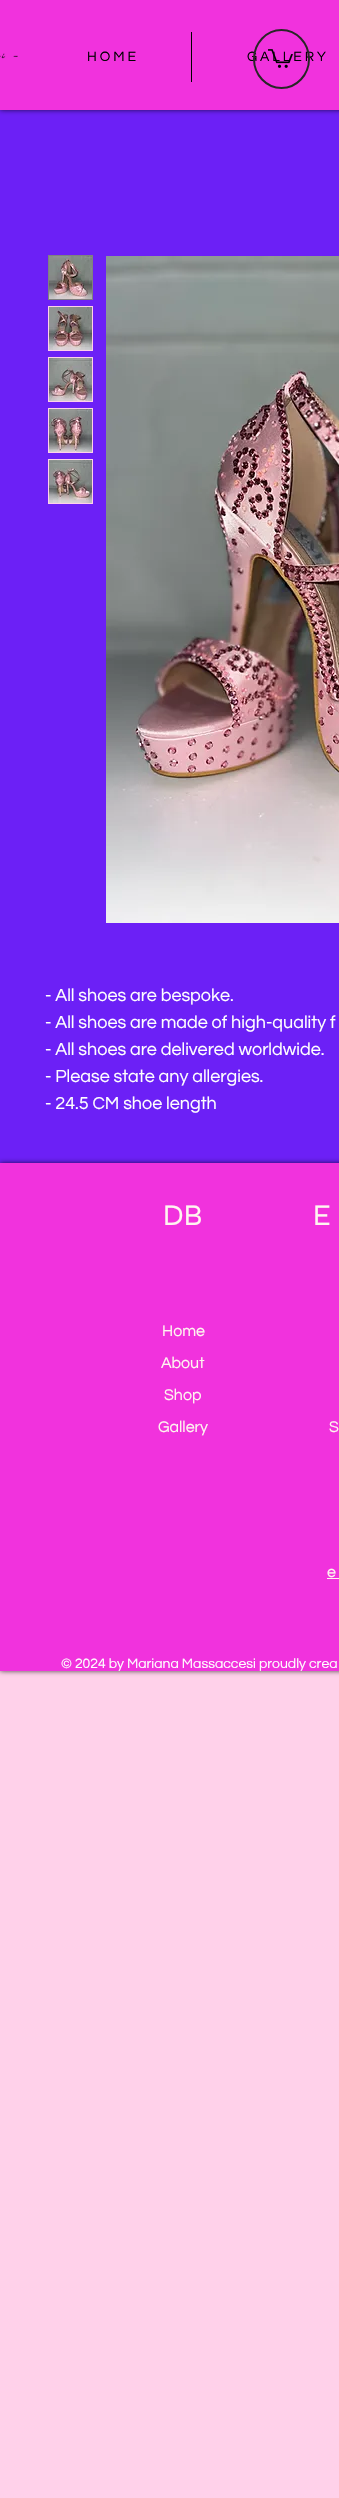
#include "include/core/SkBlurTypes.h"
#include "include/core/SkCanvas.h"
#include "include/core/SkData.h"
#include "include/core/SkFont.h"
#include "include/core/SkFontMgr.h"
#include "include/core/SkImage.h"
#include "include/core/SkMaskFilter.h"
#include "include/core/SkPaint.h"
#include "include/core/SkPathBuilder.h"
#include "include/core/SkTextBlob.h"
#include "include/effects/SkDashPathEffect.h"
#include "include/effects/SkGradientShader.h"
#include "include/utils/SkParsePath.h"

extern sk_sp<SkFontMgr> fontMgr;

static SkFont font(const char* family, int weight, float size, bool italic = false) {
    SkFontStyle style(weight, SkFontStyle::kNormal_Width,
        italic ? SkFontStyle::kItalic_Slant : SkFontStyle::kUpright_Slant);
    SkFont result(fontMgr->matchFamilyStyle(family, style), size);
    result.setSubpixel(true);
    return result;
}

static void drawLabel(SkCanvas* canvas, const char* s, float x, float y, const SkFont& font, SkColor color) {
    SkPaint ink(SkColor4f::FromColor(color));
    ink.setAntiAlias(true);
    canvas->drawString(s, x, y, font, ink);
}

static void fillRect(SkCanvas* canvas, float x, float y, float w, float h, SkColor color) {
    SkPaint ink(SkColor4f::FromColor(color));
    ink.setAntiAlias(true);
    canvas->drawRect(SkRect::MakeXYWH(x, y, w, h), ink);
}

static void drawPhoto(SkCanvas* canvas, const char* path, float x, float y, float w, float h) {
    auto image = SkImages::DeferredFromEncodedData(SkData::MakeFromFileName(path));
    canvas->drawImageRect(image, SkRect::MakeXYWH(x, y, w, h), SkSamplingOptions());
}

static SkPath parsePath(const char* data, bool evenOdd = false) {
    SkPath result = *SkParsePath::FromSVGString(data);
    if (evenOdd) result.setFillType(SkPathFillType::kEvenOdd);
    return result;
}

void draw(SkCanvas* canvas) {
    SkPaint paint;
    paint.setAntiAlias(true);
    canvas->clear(0xFFFFD1EA);
    fillRect(canvas, 0, 110, 339, 1053, 0xFF6C20F6);
    paint.setColor(0xB3000000);
    paint.setMaskFilter(SkMaskFilter::MakeBlur(kNormal_SkBlurStyle, 2.5f));
    canvas->drawRect(SkRect::MakeXYWH(0, 0, 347, 110), paint);
    paint.setMaskFilter(nullptr);
    fillRect(canvas, 0, 0, 339, 110, 0xFFF132DD);
    SkFont font1 = font("Questrial", 400, 14);
    drawLabel(canvas, "G A L L E R Y", 247, 61, font1, 0xFF000000);
    paint.setStroke(true);
    paint.setStrokeWidth(2);
    paint.setColor(0xFF282626);
    canvas->drawPath(parsePath("M281.5 30C296.5 30 309 43 309 59C309 75 296.5 88 281.5 88C266.5 88 254 75 254 59C254 43 266.5 30 281.5 30Z"), paint);
    drawPhoto(canvas, "assets/img1.png", 268, 49, 25, 19);
    drawPhoto(canvas, "assets/img2.png", 0, 53, 18, 6);
    drawLabel(canvas, "H O M E", 87, 61, font1, 0xFF000000);
    fillRect(canvas, 191, 32, 1, 50, 0xFF000000);
    paint.setStrokeWidth(1);
    paint.setColor(0xFF808080);
    canvas->drawRect(SkRect::MakeXYWH(48.5f, 255.5f, 44, 44), paint);
    drawPhoto(canvas, "assets/img3.png", 49, 256, 43, 43);
    fillRect(canvas, 48, 306, 45, 45, 0xFFFFD1EA);
    drawPhoto(canvas, "assets/img4.png", 49, 307, 43, 43);
    fillRect(canvas, 48, 357, 45, 45, 0xFFFFD1EA);
    drawPhoto(canvas, "assets/img5.png", 49, 358, 43, 43);
    fillRect(canvas, 48, 408, 45, 45, 0xFFFFD1EA);
    drawPhoto(canvas, "assets/img6.png", 49, 409, 43, 43);
    fillRect(canvas, 48, 459, 45, 45, 0xFFFFD1EA);
    drawPhoto(canvas, "assets/img7.png", 49, 460, 43, 43);
    drawPhoto(canvas, "assets/img8.png", 106, 256, 233, 667);
    SkFont font2 = font("Questrial", 400, 18);
    drawLabel(canvas, "- All shoes are bespoke.", 45, 1001, font2, 0xFFFFFFFF);
    drawLabel(canvas, "- All shoes are made of high-quality f", 45, 1028, font2, 0xFFFFFFFF);
    drawLabel(canvas, "- All shoes are delivered worldwide.", 45, 1055, font2, 0xFFFFFFFF);
    drawLabel(canvas, "- Please state any allergies.", 45, 1082, font2, 0xFFFFFFFF);
    drawLabel(canvas, "- 24.5 CM shoe length", 45, 1109, font2, 0xFFFFFFFF);
    paint.setStroke(false);
    paint.setColor(0xB3000000);
    paint.setMaskFilter(SkMaskFilter::MakeBlur(kNormal_SkBlurStyle, 2.5f));
    canvas->drawRect(SkRect::MakeXYWH(0, 1163, 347, 508), paint);
    paint.setMaskFilter(nullptr);
    fillRect(canvas, 0, 1163, 339, 508, 0xFFF132DD);
    SkFont font3 = font("Syne", 400, 30);
    drawLabel(canvas, "DB", 163, 1225, font3, 0xFFFFF5F0);
    drawLabel(canvas, "E", 313, 1225, font3, 0xFFFFF5F0);
    SkFont font4 = font("Questrial", 400, 16);
    drawLabel(canvas, "Home", 162, 1336, font4, 0xFFFFF5F0);
    drawLabel(canvas, "About", 161, 1368, font4, 0xFFFFF5F0);
    drawLabel(canvas, "Shop", 164, 1400, font4, 0xFFFFF5F0);
    drawLabel(canvas, "Gallery", 158, 1432, font4, 0xFFFFF5F0);
    drawLabel(canvas, "S", 329, 1432, font4, 0xFFFFF5F0);
    drawLabel(canvas, "e", 327, 1577, font4, 0xFFFFF5F0);
    fillRect(canvas, 327, 1578, 12, 1, 0xFFFFF5F0);
    drawLabel(canvas, "© 2024 by Mariana Massaccesi proudly crea", 61, 1668, font1, 0xFFFFFFFF);
}
